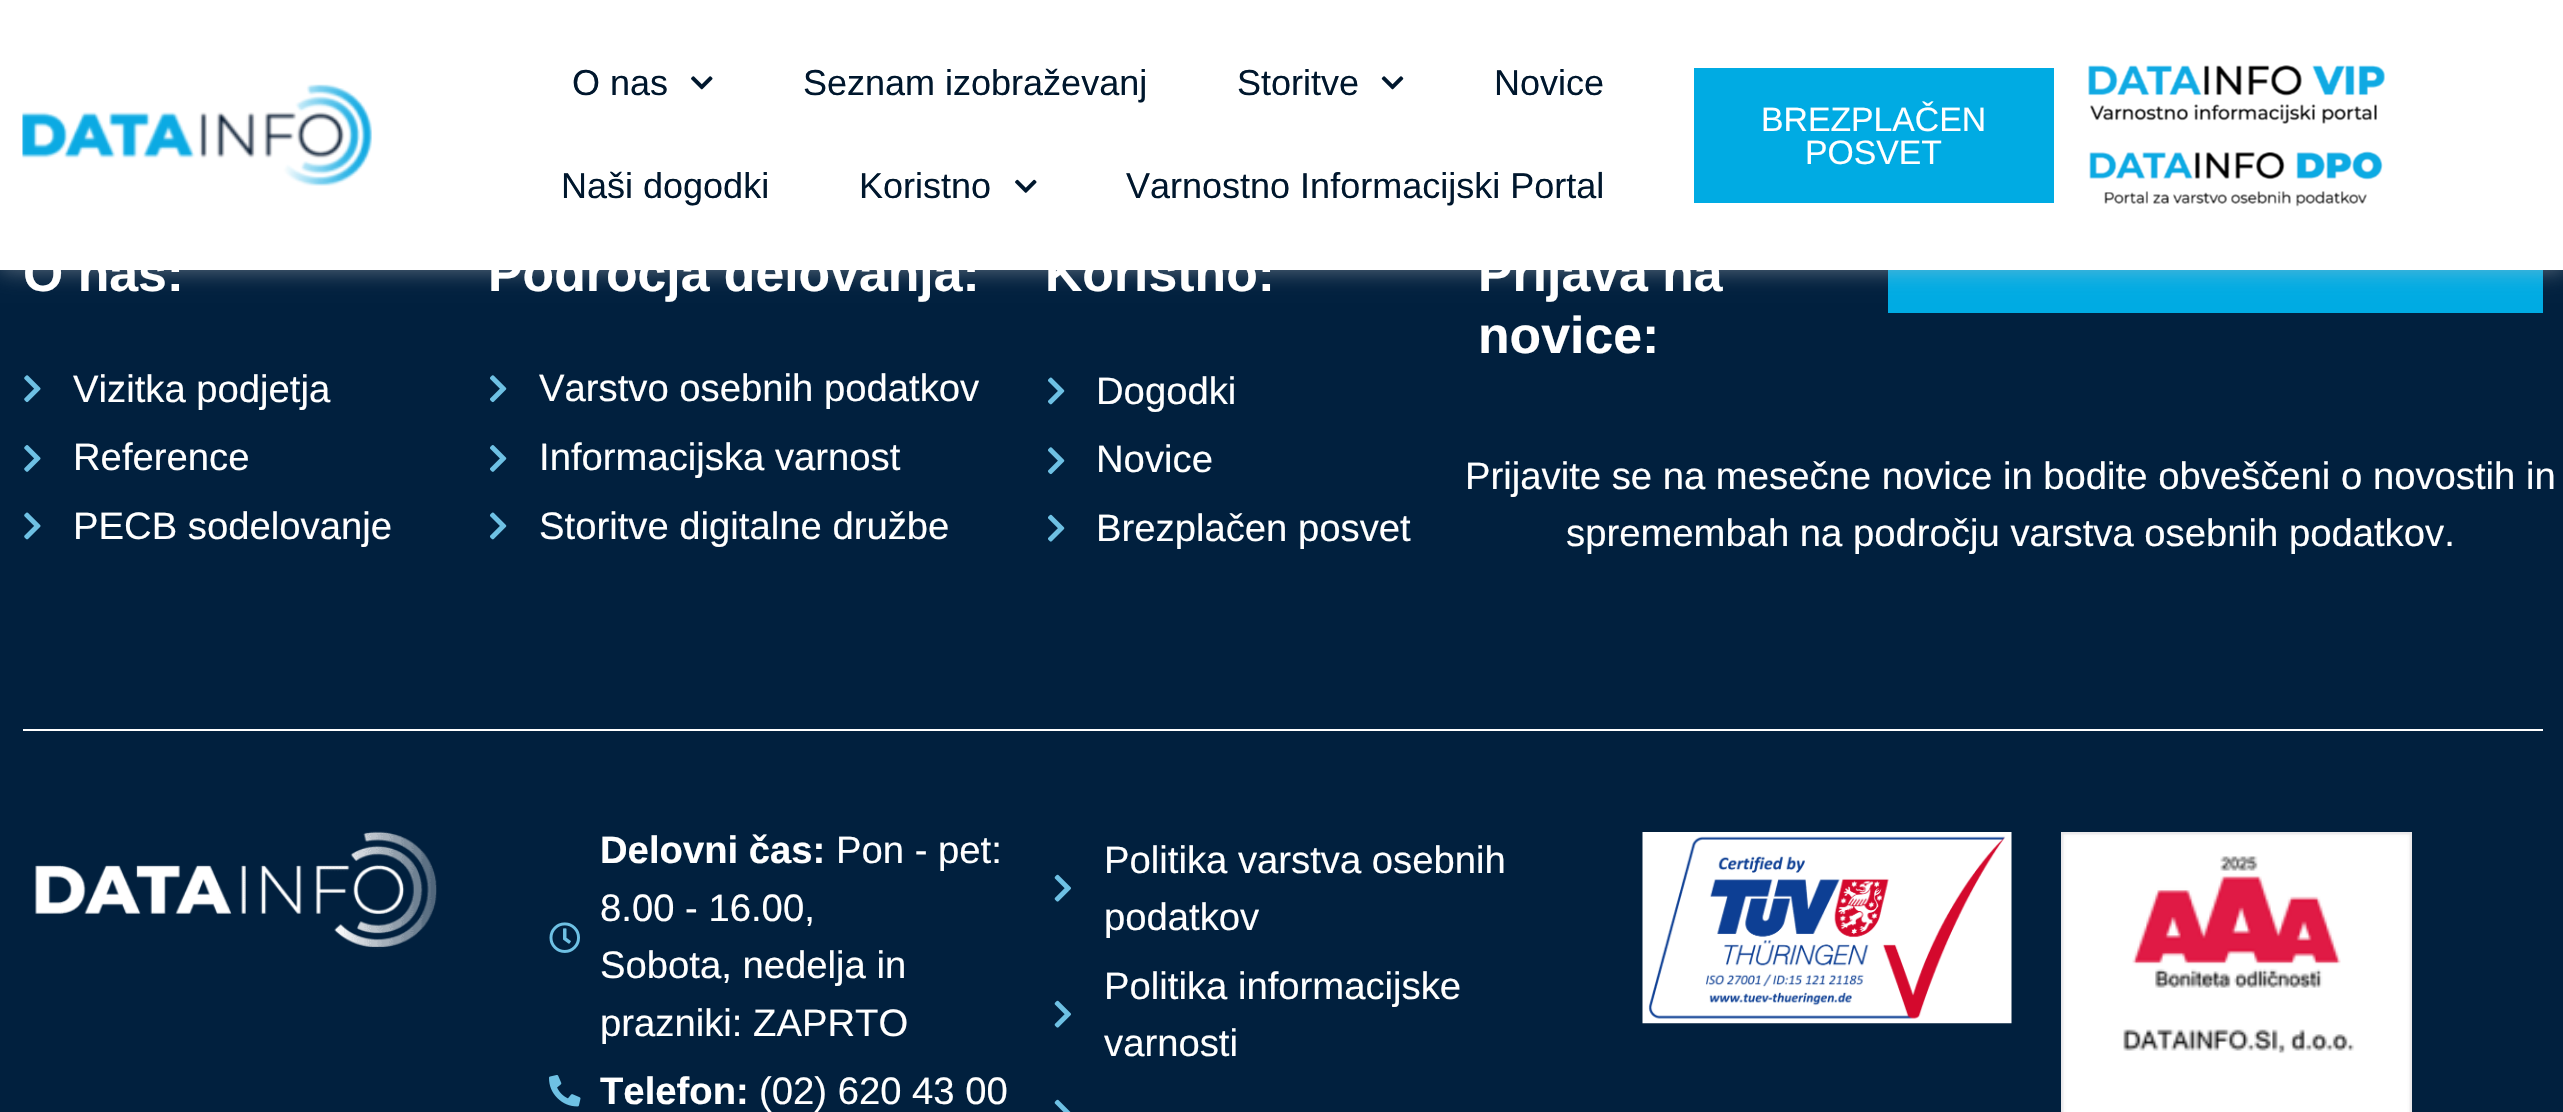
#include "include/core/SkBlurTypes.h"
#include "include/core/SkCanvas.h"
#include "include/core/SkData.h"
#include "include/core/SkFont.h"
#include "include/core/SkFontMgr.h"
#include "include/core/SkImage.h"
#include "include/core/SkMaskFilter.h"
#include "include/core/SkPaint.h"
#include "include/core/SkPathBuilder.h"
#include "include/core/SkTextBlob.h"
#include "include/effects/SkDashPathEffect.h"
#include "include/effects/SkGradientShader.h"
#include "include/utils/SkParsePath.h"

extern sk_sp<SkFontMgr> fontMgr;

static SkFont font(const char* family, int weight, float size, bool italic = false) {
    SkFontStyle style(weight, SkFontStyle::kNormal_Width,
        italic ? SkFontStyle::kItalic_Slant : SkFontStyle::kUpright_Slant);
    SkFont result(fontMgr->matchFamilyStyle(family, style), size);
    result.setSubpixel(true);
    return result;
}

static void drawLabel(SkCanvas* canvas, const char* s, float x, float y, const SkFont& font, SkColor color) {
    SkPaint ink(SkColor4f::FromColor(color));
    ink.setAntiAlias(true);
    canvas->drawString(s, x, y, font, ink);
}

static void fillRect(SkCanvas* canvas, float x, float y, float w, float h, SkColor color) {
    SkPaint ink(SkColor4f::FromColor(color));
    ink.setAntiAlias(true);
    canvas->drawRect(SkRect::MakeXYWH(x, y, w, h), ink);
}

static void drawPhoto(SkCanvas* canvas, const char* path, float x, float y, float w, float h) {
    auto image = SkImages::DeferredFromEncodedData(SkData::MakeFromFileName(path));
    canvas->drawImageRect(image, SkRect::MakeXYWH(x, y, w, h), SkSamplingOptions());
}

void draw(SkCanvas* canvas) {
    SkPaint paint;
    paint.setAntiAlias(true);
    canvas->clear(0xFF01203E);
    fillRect(canvas, 1888, 270, 655, 43, 0xFF00ABE3);
    paint.setColor(0x80C4C4C4);
    paint.setMaskFilter(SkMaskFilter::MakeBlur(kNormal_SkBlurStyle, 11));
    canvas->drawRect(SkRect::MakeXYWH(0, 0, 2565, 270), paint);
    paint.setMaskFilter(nullptr);
    fillRect(canvas, 0, 0, 2563, 270, 0xFFFFFFFF);
    drawPhoto(canvas, "assets/img1.png", 22, 84, 350, 102);
    SkFont font1 = font("Liberation Sans", 400, 36);
    drawLabel(canvas, "O nas", 572, 95, font1, 0xFF00172D);
    drawPhoto(canvas, "assets/img2.png", 691, 76, 22, 14);
    drawLabel(canvas, "Seznam izobraževanj", 803, 95, font1, 0xFF00172D);
    drawLabel(canvas, "Storitve", 1237, 95, font1, 0xFF00172D);
    drawPhoto(canvas, "assets/img3.png", 1381, 76, 23, 14);
    drawLabel(canvas, "Novice", 1494, 95, font1, 0xFF00172D);
    drawLabel(canvas, "Naši dogodki", 561, 198, font1, 0xFF00172D);
    drawLabel(canvas, "Koristno", 859, 198, font1, 0xFF00172D);
    drawPhoto(canvas, "assets/img4.png", 1015, 179, 22, 14);
    drawLabel(canvas, "Varnostno Informacijski Portal", 1126, 198, font1, 0xFF00172D);
    fillRect(canvas, 1694, 68, 360, 135, 0xFF00ABE3);
    SkFont font2 = font("Liberation Sans", 400, 33.75f);
    drawLabel(canvas, "BREZPLAČEN", 1761, 131, font2, 0xFFFFFFFF);
    drawLabel(canvas, "POSVET", 1805, 164, font2, 0xFFFFFFFF);
    drawPhoto(canvas, "assets/img5.png", 2088, 65, 297, 59);
    drawPhoto(canvas, "assets/img6.png", 2089, 151, 294, 56);
    SkFont font3 = font("Liberation Sans", 700, 51.75f);
    drawLabel(canvas, "O nas:", 23, 291, font3, 0xFFFFFFFF);
    drawPhoto(canvas, "assets/img7.png", 24, 375, 17, 28);
    SkFont font4 = font("Liberation Sans", 400, 38.25f);
    drawLabel(canvas, "Vizitka podjetja", 73, 402, font4, 0xFFFFFFFF);
    drawPhoto(canvas, "assets/img8.png", 24, 445, 17, 27);
    drawLabel(canvas, "Reference", 73, 470, font4, 0xFFFFFFFF);
    drawPhoto(canvas, "assets/img9.png", 24, 512, 17, 28);
    drawLabel(canvas, "PECB sodelovanje", 73, 539, font4, 0xFFFFFFFF);
    drawLabel(canvas, "Področja delovanja:", 488, 291, font3, 0xFFFFFFFF);
    drawPhoto(canvas, "assets/img10.png", 490, 375, 17, 28);
    drawLabel(canvas, "Varstvo osebnih podatkov", 539, 401, font4, 0xFFFFFFFF);
    drawPhoto(canvas, "assets/img11.png", 490, 445, 17, 27);
    drawLabel(canvas, "Informacijska varnost", 539, 470, font4, 0xFFFFFFFF);
    drawPhoto(canvas, "assets/img12.png", 490, 512, 17, 28);
    drawLabel(canvas, "Storitve digitalne družbe", 539, 539, font4, 0xFFFFFFFF);
    drawLabel(canvas, "Koristno:", 1045, 291, font3, 0xFFFFFFFF);
    drawPhoto(canvas, "assets/img12.png", 1048, 377, 17, 28);
    drawLabel(canvas, "Dogodki", 1096, 404, font4, 0xFFFFFFFF);
    drawPhoto(canvas, "assets/img10.png", 1048, 447, 17, 28);
    drawLabel(canvas, "Novice", 1096, 472, font4, 0xFFFFFFFF);
    drawPhoto(canvas, "assets/img13.png", 1048, 514, 17, 28);
    drawLabel(canvas, "Brezplačen posvet", 1096, 541, font4, 0xFFFFFFFF);
    drawLabel(canvas, "Prijava na", 1478, 291, font3, 0xFFFFFFFF);
    drawLabel(canvas, "novice:", 1478, 353, font3, 0xFFFFFFFF);
    drawLabel(canvas, "Prijavite se na mesečne novice in bodite obveščeni o novostih in", 1465, 489, font4, 0xFFFFFFFF);
    drawLabel(canvas, "spremembah na področju varstva osebnih podatkov.", 1566, 546, font4, 0xFFFFFFFF);
    fillRect(canvas, 23, 729, 2520, 2, 0xFFFFFFFF);
    drawPhoto(canvas, "assets/img14.png", 35, 831, 402, 118);
    drawPhoto(canvas, "assets/img15.png", 549, 922, 31, 31);
    SkFont font5 = font("Liberation Sans", 700, 38.25f);
    drawLabel(canvas, "Delovni čas:", 600, 863, font5, 0xFFFFFFFF);
    drawLabel(canvas, "Pon - pet:", 836, 863, font4, 0xFFFFFFFF);
    drawLabel(canvas, "8.00 - 16.00,", 600, 921, font4, 0xFFFFFFFF);
    drawLabel(canvas, "Sobota, nedelja in", 600, 978, font4, 0xFFFFFFFF);
    drawLabel(canvas, "prazniki: ZAPRTO", 600, 1036, font4, 0xFFFFFFFF);
    drawPhoto(canvas, "assets/img16.png", 549, 1075, 32, 32);
    drawLabel(canvas, "Telefon:", 600, 1104, font5, 0xFFFFFFFF);
    drawLabel(canvas, "(02) 620 43 00", 759, 1104, font4, 0xFFFFFFFF);
    drawPhoto(canvas, "assets/img17.png", 1054, 874, 17, 28);
    drawLabel(canvas, "Politika varstva osebnih", 1104, 873, font4, 0xFFFFFFFF);
    drawLabel(canvas, "podatkov", 1104, 930, font4, 0xFFFFFFFF);
    drawPhoto(canvas, "assets/img17.png", 1054, 1000, 17, 28);
    drawLabel(canvas, "Politika informacijske", 1104, 999, font4, 0xFFFFFFFF);
    drawLabel(canvas, "varnosti", 1104, 1056, font4, 0xFFFFFFFF);
    drawPhoto(canvas, "assets/img18.png", 1054, 1099, 17, 13);
    drawPhoto(canvas, "assets/img19.png", 1642, 832, 370, 192);
    drawPhoto(canvas, "assets/img20.png", 2061, 832, 351, 280);
}
